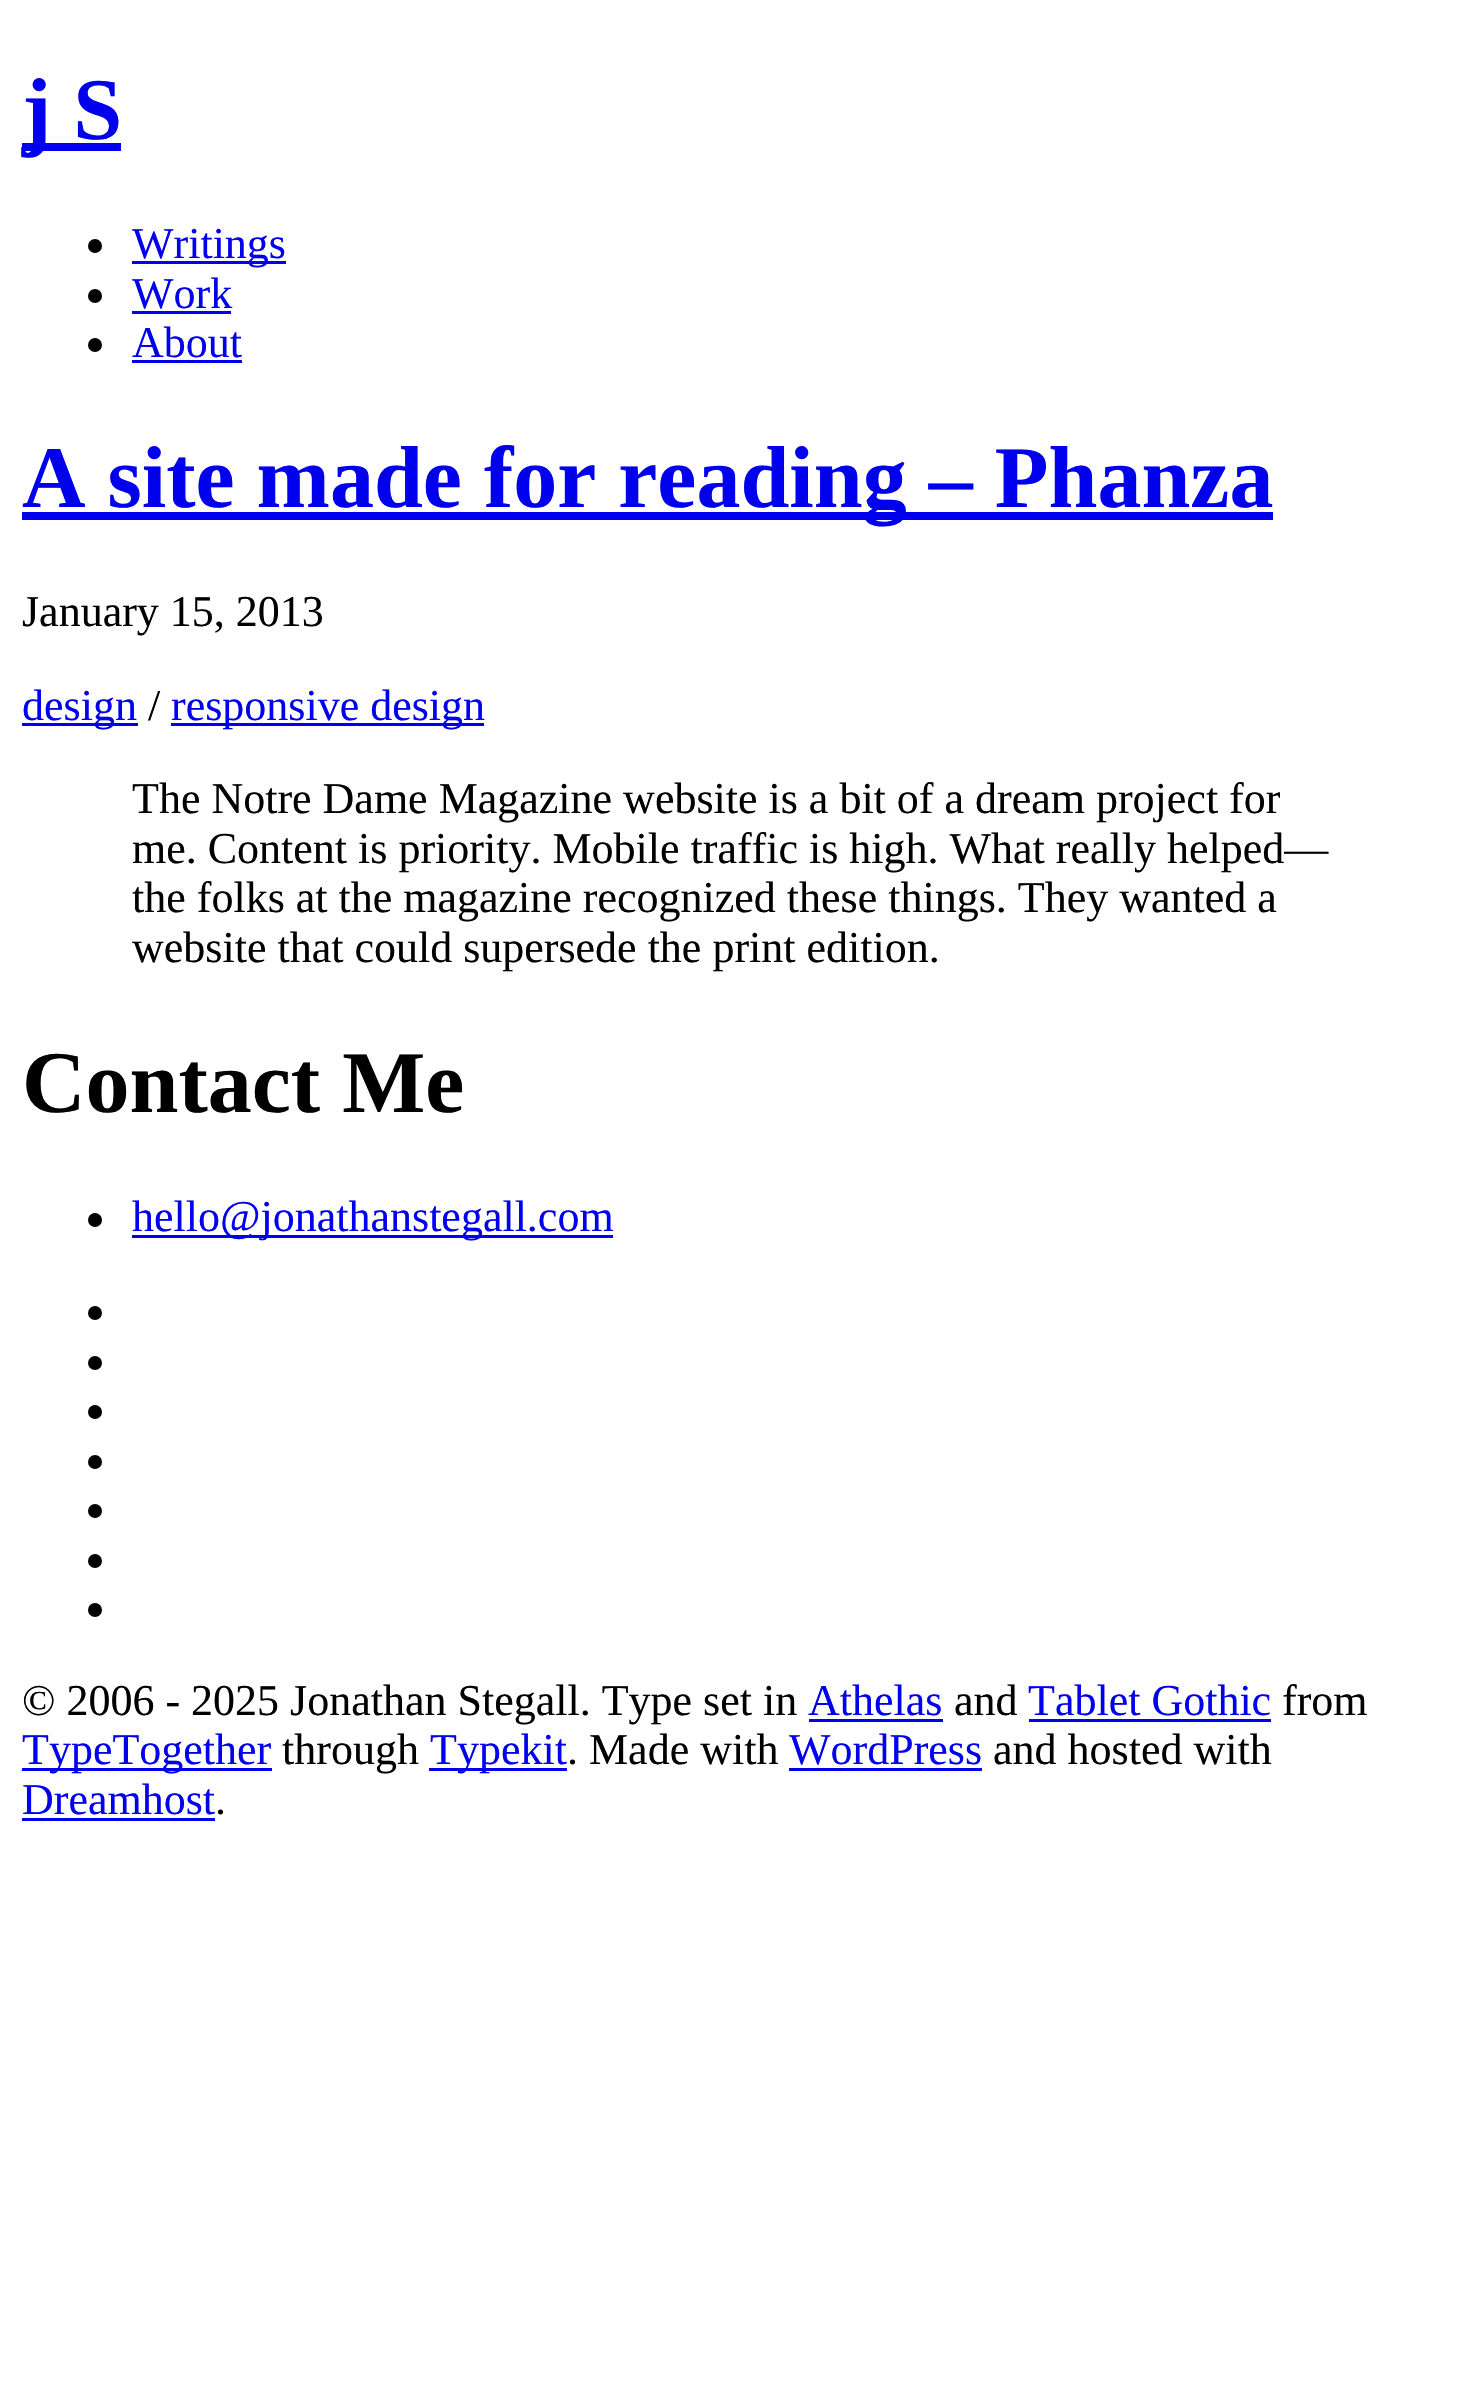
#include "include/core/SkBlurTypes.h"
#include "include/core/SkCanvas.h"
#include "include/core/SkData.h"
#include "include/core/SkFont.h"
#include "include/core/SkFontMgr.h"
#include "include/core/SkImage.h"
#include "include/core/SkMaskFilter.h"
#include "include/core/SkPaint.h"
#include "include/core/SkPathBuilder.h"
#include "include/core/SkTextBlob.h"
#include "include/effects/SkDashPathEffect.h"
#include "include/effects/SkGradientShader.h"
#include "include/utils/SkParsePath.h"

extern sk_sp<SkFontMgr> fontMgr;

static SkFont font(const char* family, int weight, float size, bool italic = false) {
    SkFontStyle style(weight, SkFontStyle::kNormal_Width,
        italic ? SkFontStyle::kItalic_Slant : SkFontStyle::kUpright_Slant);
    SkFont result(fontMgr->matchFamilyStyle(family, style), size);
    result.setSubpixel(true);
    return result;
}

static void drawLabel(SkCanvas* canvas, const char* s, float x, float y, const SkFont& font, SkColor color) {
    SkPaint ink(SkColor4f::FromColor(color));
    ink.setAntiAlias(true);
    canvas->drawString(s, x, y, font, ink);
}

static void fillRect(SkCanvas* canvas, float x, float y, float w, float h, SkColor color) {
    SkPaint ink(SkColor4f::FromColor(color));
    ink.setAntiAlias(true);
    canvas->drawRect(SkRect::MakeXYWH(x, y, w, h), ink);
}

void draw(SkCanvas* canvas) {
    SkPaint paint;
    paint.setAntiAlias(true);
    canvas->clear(0xFFFFFFFF);
    fillRect(canvas, 22, 143, 99, 8, 0xFF0000EE);
    SkFont font1 = font("Liberation Serif", 700, 88);
    drawLabel(canvas, "j S", 22, 139, font1, 0xFF0000EE);
    paint.setColor(0xFF000000);
    canvas->drawCircle(95, 246, 7, paint);
    fillRect(canvas, 132, 261, 154, 3, 0xFF0000EE);
    SkFont font2 = font("Liberation Serif", 400, 44);
    drawLabel(canvas, "Writings", 132, 258, font2, 0xFF0000EE);
    canvas->drawCircle(95, 296, 7, paint);
    drawLabel(canvas, "Work", 132, 308, font2, 0xFF0000EE);
    fillRect(canvas, 132, 311, 99, 3, 0xFF0000EE);
    canvas->drawCircle(95, 345, 7, paint);
    drawLabel(canvas, "About", 132, 357, font2, 0xFF0000EE);
    fillRect(canvas, 132, 360, 110, 3, 0xFF0000EE);
    fillRect(canvas, 22, 512, 1251, 8, 0xFF0000EE);
    drawLabel(canvas, "A site made for reading – Phanza", 22, 507, font1, 0xFF0000EE);
    drawLabel(canvas, "January 15, 2013", 22, 626, font2, 0xFF000000);
    fillRect(canvas, 22, 723, 116, 3, 0xFF0000EE);
    drawLabel(canvas, "design", 22, 720, font2, 0xFF0000EE);
    drawLabel(canvas, "/", 148, 720, font2, 0xFF000000);
    fillRect(canvas, 171, 723, 313, 3, 0xFF0000EE);
    drawLabel(canvas, "responsive design", 171, 720, font2, 0xFF0000EE);
    drawLabel(canvas, "The Notre Dame Magazine website is a bit of a dream project for", 132, 813, font2, 0xFF000000);
    drawLabel(canvas, "me. Content is priority. Mobile traffic is high. What really helped—", 132, 863, font2, 0xFF000000);
    drawLabel(canvas, "the folks at the magazine recognized these things. They wanted a", 132, 912, font2, 0xFF000000);
    drawLabel(canvas, "website that could supersede the print edition.", 132, 962, font2, 0xFF000000);
    drawLabel(canvas, "Contact Me", 22, 1112, font1, 0xFF000000);
    canvas->drawCircle(95, 1220, 7, paint);
    fillRect(canvas, 132, 1235, 481, 3, 0xFF0000EE);
    drawLabel(canvas, "hello@jonathanstegall.com", 132, 1231, font2, 0xFF0000EE);
    canvas->drawCircle(95, 1313, 7, paint);
    canvas->drawCircle(95, 1363, 7, paint);
    canvas->drawCircle(95, 1412, 7, paint);
    canvas->drawCircle(95, 1462, 7, paint);
    canvas->drawCircle(95, 1511, 7, paint);
    canvas->drawCircle(95, 1561, 7, paint);
    canvas->drawCircle(95, 1610, 7, paint);
    drawLabel(canvas, "© 2006 - 2025 Jonathan Stegall. Type set in", 22, 1715, font2, 0xFF000000);
    drawLabel(canvas, "Athelas", 808, 1715, font2, 0xFF0000EE);
    fillRect(canvas, 809, 1719, 134, 3, 0xFF0000EE);
    drawLabel(canvas, "and", 954, 1715, font2, 0xFF000000);
    drawLabel(canvas, "Tablet Gothic", 1028, 1715, font2, 0xFF0000EE);
    fillRect(canvas, 1029, 1719, 242, 3, 0xFF0000EE);
    drawLabel(canvas, "from", 1282, 1715, font2, 0xFF000000);
    fillRect(canvas, 22, 1768, 250, 3, 0xFF0000EE);
    drawLabel(canvas, "TypeTogether", 22, 1764, font2, 0xFF0000EE);
    drawLabel(canvas, "through", 282, 1764, font2, 0xFF000000);
    fillRect(canvas, 429, 1768, 138, 3, 0xFF0000EE);
    drawLabel(canvas, "Typekit", 430, 1764, font2, 0xFF0000EE);
    drawLabel(canvas, ". Made with", 567, 1764, font2, 0xFF000000);
    drawLabel(canvas, "WordPress", 789, 1764, font2, 0xFF0000EE);
    fillRect(canvas, 789, 1768, 193, 3, 0xFF0000EE);
    drawLabel(canvas, "and hosted with", 993, 1764, font2, 0xFF000000);
    drawLabel(canvas, "Dreamhost", 22, 1814, font2, 0xFF0000EE);
    fillRect(canvas, 22, 1818, 193, 3, 0xFF0000EE);
    drawLabel(canvas, ".", 215, 1814, font2, 0xFF000000);
}
